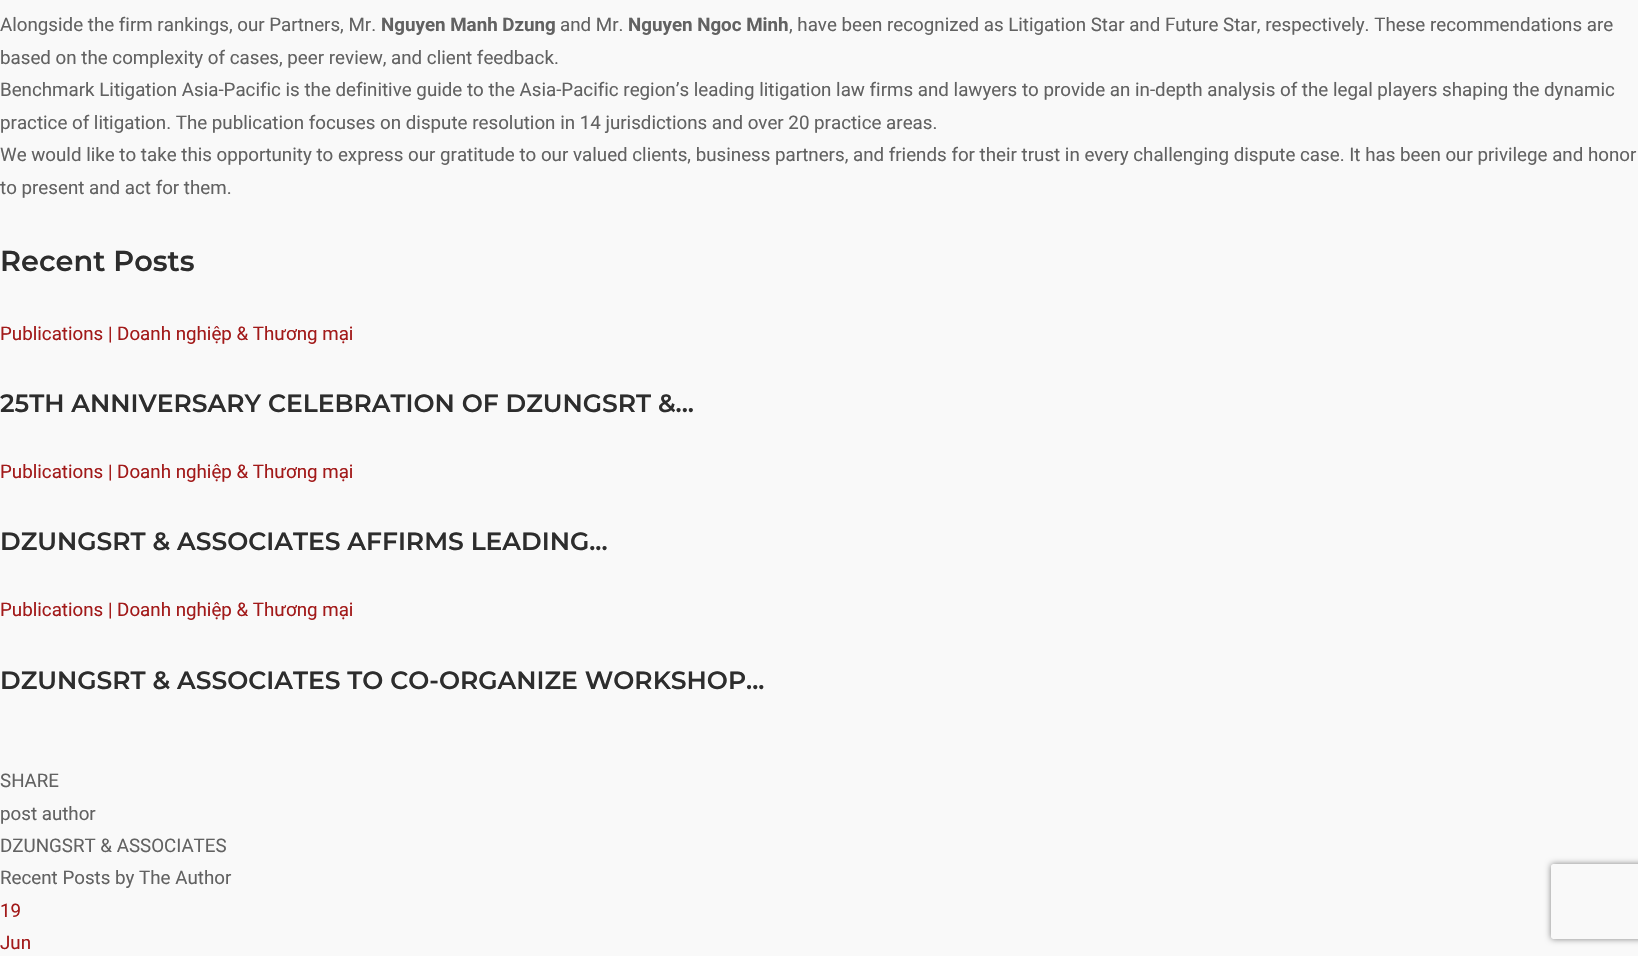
#include "include/core/SkBlurTypes.h"
#include "include/core/SkCanvas.h"
#include "include/core/SkData.h"
#include "include/core/SkFont.h"
#include "include/core/SkFontMgr.h"
#include "include/core/SkImage.h"
#include "include/core/SkMaskFilter.h"
#include "include/core/SkPaint.h"
#include "include/core/SkPathBuilder.h"
#include "include/core/SkTextBlob.h"
#include "include/effects/SkDashPathEffect.h"
#include "include/effects/SkGradientShader.h"
#include "include/utils/SkParsePath.h"

extern sk_sp<SkFontMgr> fontMgr;

static SkFont font(const char* family, int weight, float size, bool italic = false) {
    SkFontStyle style(weight, SkFontStyle::kNormal_Width,
        italic ? SkFontStyle::kItalic_Slant : SkFontStyle::kUpright_Slant);
    SkFont result(fontMgr->matchFamilyStyle(family, style), size);
    result.setSubpixel(true);
    return result;
}

static void drawLabel(SkCanvas* canvas, const char* s, float x, float y, const SkFont& font, SkColor color) {
    SkPaint ink(SkColor4f::FromColor(color));
    ink.setAntiAlias(true);
    canvas->drawString(s, x, y, font, ink);
}

static SkPath parsePath(const char* data, bool evenOdd = false) {
    SkPath result = *SkParsePath::FromSVGString(data);
    if (evenOdd) result.setFillType(SkPathFillType::kEvenOdd);
    return result;
}

void draw(SkCanvas* canvas) {
    SkPaint paint;
    paint.setAntiAlias(true);
    canvas->clear(0xFFF9F9F9);
    SkFont font1 = font("Roboto", 400, 18.75f);
    drawLabel(canvas, "Alongside the firm rankings, our Partners, Mr.", 0, 31, font1, 0xFF626262);
    SkFont font2 = font("Roboto", 700, 18.75f);
    drawLabel(canvas, "Nguyen Manh Dzung", 381, 31, font2, 0xFF626262);
    drawLabel(canvas, "and Mr.", 560, 31, font1, 0xFF626262);
    drawLabel(canvas, "Nguyen Ngoc Minh", 628, 31, font2, 0xFF626262);
    drawLabel(canvas, ", have been recognized as Litigation Star and Future Star, respectively. These recommendations are", 789, 31, font1, 0xFF626262);
    drawLabel(canvas, "based on the complexity of cases, peer review, and client feedback.", 0, 64, font1, 0xFF626262);
    drawLabel(canvas, "Benchmark Litigation Asia-Pacific is the definitive guide to the Asia-Pacific region’s leading litigation law firms and lawyers to provide an in-depth analysis of the legal players shaping the dynamic", 0, 96, font1, 0xFF626262);
    drawLabel(canvas, "practice of litigation. The publication focuses on dispute resolution in 14 jurisdictions and over 20 practice areas.", 0, 129, font1, 0xFF626262);
    drawLabel(canvas, "We would like to take this opportunity to express our gratitude to our valued clients, business partners, and friends for their trust in every challenging dispute case. It has been our privilege and honor", 0, 161, font1, 0xFF626262);
    drawLabel(canvas, "to present and act for them.", 0, 194, font1, 0xFF626262);
    SkFont font3 = font("Montserrat", 600, 28.75f);
    drawLabel(canvas, "Recent Posts", 0, 271, font3, 0xFF2D2D2D);
    drawLabel(canvas, "Publications | Doanh nghiệp & Thương mại", 0, 340, font1, 0xFFA21A1A);
    SkFont font4 = font("Montserrat", 600, 25);
    drawLabel(canvas, "25TH ANNIVERSARY CELEBRATION OF DZUNGSRT &...", 0, 412, font4, 0xFF2D2D2D);
    drawLabel(canvas, "Publications | Doanh nghiệp & Thương mại", 0, 478, font1, 0xFFA21A1A);
    drawLabel(canvas, "DZUNGSRT & ASSOCIATES AFFIRMS LEADING...", 0, 550, font4, 0xFF2D2D2D);
    drawLabel(canvas, "Publications | Doanh nghiệp & Thương mại", 0, 616, font1, 0xFFA21A1A);
    drawLabel(canvas, "DZUNGSRT & ASSOCIATES TO CO-ORGANIZE WORKSHOP...", 0, 689, font4, 0xFF2D2D2D);
    drawLabel(canvas, "SHARE", 0, 787, font1, 0xFF626262);
    drawLabel(canvas, "post author", 0, 820, font1, 0xFF626262);
    drawLabel(canvas, "DZUNGSRT & ASSOCIATES", 0, 852, font1, 0xFF626262);
    drawLabel(canvas, "Recent Posts by The Author", 0, 884, font1, 0xFF626262);
    drawLabel(canvas, "19", 0, 917, font1, 0xFFA21A1A);
    drawLabel(canvas, "Jun", 0, 949, font1, 0xFFA21A1A);
    canvas->save();
    canvas->clipPath(parsePath("M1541 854H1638V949H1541ZM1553.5 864H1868.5C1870 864 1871 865 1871 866.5V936.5C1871 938 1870 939 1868.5 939H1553.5C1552 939 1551 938 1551 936.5V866.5C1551 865 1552 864 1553.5 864Z", true), true);
    paint.setColor(0xFF808080);
    paint.setMaskFilter(SkMaskFilter::MakeBlur(kNormal_SkBlurStyle, 3));
    canvas->drawRoundRect(SkRect::MakeXYWH(1551, 864, 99, 75), 2.5f, 2.5f, paint);
    paint.setMaskFilter(nullptr);
    canvas->restore();
}
